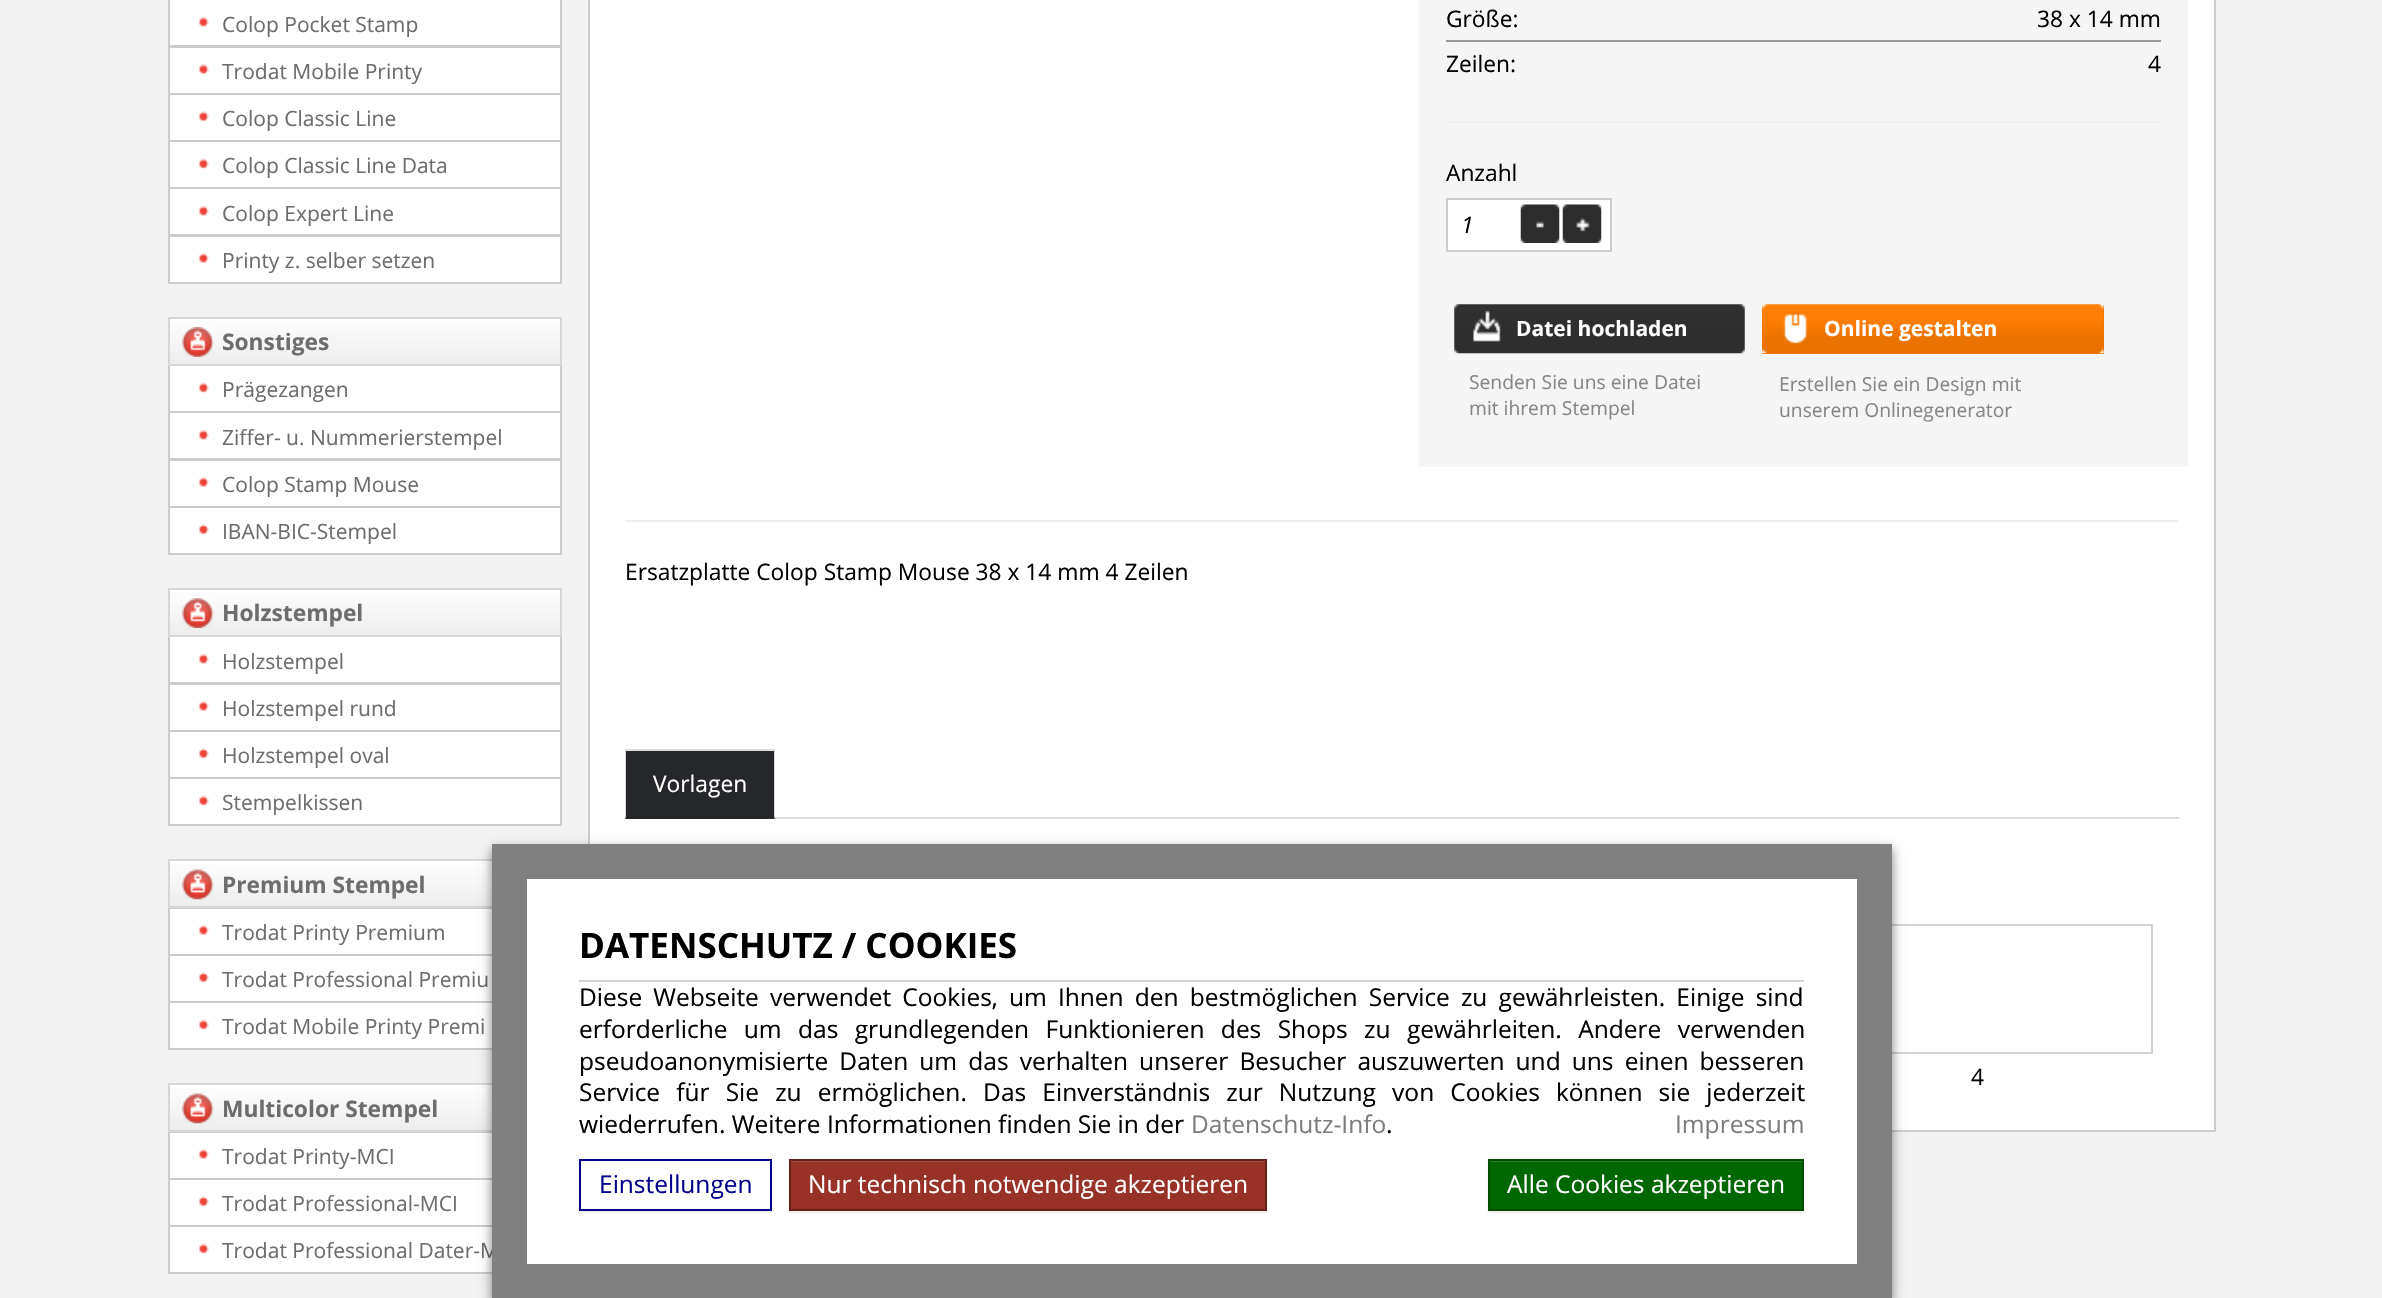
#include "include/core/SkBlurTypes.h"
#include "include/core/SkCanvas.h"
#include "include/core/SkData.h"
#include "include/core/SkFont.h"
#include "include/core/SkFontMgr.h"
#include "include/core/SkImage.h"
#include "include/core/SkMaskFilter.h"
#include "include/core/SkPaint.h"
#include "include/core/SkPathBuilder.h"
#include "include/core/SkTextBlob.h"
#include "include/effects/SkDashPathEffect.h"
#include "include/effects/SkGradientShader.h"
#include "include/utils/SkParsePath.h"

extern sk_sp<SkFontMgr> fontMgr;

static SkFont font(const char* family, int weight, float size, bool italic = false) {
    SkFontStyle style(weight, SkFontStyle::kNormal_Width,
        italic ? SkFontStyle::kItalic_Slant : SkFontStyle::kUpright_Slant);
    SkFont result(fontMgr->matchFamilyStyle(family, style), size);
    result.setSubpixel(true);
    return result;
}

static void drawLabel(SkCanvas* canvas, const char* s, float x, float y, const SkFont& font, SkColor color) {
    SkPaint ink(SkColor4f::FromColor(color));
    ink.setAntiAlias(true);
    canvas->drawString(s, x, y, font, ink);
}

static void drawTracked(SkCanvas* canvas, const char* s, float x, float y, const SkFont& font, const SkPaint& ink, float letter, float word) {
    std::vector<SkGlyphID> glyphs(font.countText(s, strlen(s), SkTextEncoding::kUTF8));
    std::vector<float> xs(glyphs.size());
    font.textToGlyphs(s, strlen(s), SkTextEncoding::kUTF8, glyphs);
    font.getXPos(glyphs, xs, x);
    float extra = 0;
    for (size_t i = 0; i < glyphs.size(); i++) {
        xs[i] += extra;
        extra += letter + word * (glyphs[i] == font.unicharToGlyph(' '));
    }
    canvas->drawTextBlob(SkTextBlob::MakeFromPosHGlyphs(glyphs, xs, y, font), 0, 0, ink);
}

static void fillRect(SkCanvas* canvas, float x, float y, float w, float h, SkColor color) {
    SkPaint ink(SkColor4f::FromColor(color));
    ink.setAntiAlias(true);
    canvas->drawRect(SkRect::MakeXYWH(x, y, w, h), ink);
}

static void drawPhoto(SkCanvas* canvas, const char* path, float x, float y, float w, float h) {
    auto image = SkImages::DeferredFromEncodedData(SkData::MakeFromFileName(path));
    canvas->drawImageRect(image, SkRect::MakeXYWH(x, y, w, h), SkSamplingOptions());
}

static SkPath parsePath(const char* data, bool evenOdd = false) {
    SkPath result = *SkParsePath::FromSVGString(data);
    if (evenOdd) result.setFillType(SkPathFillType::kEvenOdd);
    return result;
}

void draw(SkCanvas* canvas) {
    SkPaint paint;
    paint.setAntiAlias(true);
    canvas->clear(0xFFF2F2F2);
    fillRect(canvas, 170, 0, 390, 45, 0xFFFFFFFF);
    drawPhoto(canvas, "assets/img1.png", 199, 16, 10, 11);
    paint.setStroke(true);
    paint.setStrokeWidth(2);
    paint.setColor(0xFFCCCCCC);
    canvas->drawRect(SkRect::MakeXYWH(169, -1, 392, 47), paint);
    SkFont font1 = font("Open Sans", 400, 21);
    drawLabel(canvas, "Colop Pocket Stamp", 222, 32, font1, 0xFF6D6D6D);
    fillRect(canvas, 170, 48, 390, 45, 0xFFFFFFFF);
    drawPhoto(canvas, "assets/img2.png", 199, 64, 10, 10);
    canvas->drawRect(SkRect::MakeXYWH(169, 47, 392, 47), paint);
    drawLabel(canvas, "Trodat Mobile Printy", 222, 79, font1, 0xFF6D6D6D);
    fillRect(canvas, 170, 95, 390, 45, 0xFFFFFFFF);
    drawPhoto(canvas, "assets/img3.png", 199, 111, 10, 10);
    canvas->drawRect(SkRect::MakeXYWH(169, 94, 392, 47), paint);
    drawLabel(canvas, "Colop Classic Line", 222, 126, font1, 0xFF6D6D6D);
    fillRect(canvas, 170, 142, 390, 45, 0xFFFFFFFF);
    drawPhoto(canvas, "assets/img4.png", 199, 158, 10, 11);
    canvas->drawRect(SkRect::MakeXYWH(169, 141, 392, 47), paint);
    drawLabel(canvas, "Colop Classic Line Data", 222, 173, font1, 0xFF6D6D6D);
    fillRect(canvas, 170, 189, 390, 45, 0xFFFFFFFF);
    drawPhoto(canvas, "assets/img1.png", 199, 205, 10, 11);
    canvas->drawRect(SkRect::MakeXYWH(169, 188, 392, 47), paint);
    drawLabel(canvas, "Colop Expert Line", 222, 221, font1, 0xFF6D6D6D);
    fillRect(canvas, 170, 237, 390, 45, 0xFFFFFFFF);
    drawPhoto(canvas, "assets/img2.png", 199, 253, 10, 10);
    canvas->drawRect(SkRect::MakeXYWH(169, 236, 392, 47), paint);
    drawLabel(canvas, "Printy z. selber setzen", 222, 268, font1, 0xFF6D6D6D);
    paint.setStroke(false);
    {
        const SkColor colors[] = {0xFFECECEC, 0xFFFFFFFF};
        const float stops[] = {0, 1};
        const SkPoint ends[] = {{365, 366}, {365, 317}};
        paint.setShader(SkGradientShader::MakeLinear(ends, colors, stops, 2, SkTileMode::kClamp));
        paint.setAlpha(255);
    }
    canvas->drawRect(SkRect::MakeXYWH(170, 319, 390, 45), paint);
    drawPhoto(canvas, "assets/img5.png", 182, 327, 32, 30);
    fillRect(canvas, 170, 366, 390, 45, 0xFFFFFFFF);
    drawPhoto(canvas, "assets/img4.png", 199, 382, 10, 11);
    paint.setStroke(true);
    paint.setShader(nullptr);
    paint.setColor(0xFFCCCCCC);
    canvas->drawRect(SkRect::MakeXYWH(169, 365, 392, 47), paint);
    paint.setColor(0xFFD6D6D6);
    canvas->drawRect(SkRect::MakeXYWH(169, 318, 392, 47), paint);
    SkFont font2 = font("Open Sans", 700, 22.75f);
    drawLabel(canvas, "Sonstiges", 222, 350, font2, 0xFF6D6D6D);
    drawLabel(canvas, "Prägezangen", 222, 397, font1, 0xFF6D6D6D);
    fillRect(canvas, 170, 413, 390, 45, 0xFFFFFFFF);
    drawPhoto(canvas, "assets/img1.png", 199, 429, 10, 11);
    paint.setColor(0xFFCCCCCC);
    canvas->drawRect(SkRect::MakeXYWH(169, 412, 392, 47), paint);
    drawLabel(canvas, "Ziffer- u. Nummerierstempel", 222, 445, font1, 0xFF6D6D6D);
    fillRect(canvas, 170, 461, 390, 45, 0xFFFFFFFF);
    drawPhoto(canvas, "assets/img2.png", 199, 477, 10, 10);
    canvas->drawRect(SkRect::MakeXYWH(169, 460, 392, 47), paint);
    drawLabel(canvas, "Colop Stamp Mouse", 222, 492, font1, 0xFF6D6D6D);
    fillRect(canvas, 170, 508, 390, 45, 0xFFFFFFFF);
    drawPhoto(canvas, "assets/img3.png", 199, 524, 10, 10);
    canvas->drawRect(SkRect::MakeXYWH(169, 507, 392, 47), paint);
    drawLabel(canvas, "IBAN-BIC-Stempel", 222, 539, font1, 0xFF6D6D6D);
    paint.setStroke(false);
    {
        const SkColor colors[] = {0xFFECECEC, 0xFFFFFFFF};
        const float stops[] = {0, 1};
        const SkPoint ends[] = {{365, 637}, {365, 588}};
        paint.setShader(SkGradientShader::MakeLinear(ends, colors, stops, 2, SkTileMode::kClamp));
        paint.setAlpha(255);
    }
    canvas->drawRect(SkRect::MakeXYWH(170, 590, 390, 45), paint);
    drawPhoto(canvas, "assets/img6.png", 182, 598, 32, 30);
    fillRect(canvas, 170, 637, 390, 45, 0xFFFFFFFF);
    drawPhoto(canvas, "assets/img1.png", 199, 653, 10, 11);
    paint.setStroke(true);
    paint.setShader(nullptr);
    paint.setColor(0xFFCCCCCC);
    canvas->drawRect(SkRect::MakeXYWH(169, 636, 392, 47), paint);
    paint.setColor(0xFFD6D6D6);
    canvas->drawRect(SkRect::MakeXYWH(169, 589, 392, 47), paint);
    drawLabel(canvas, "Holzstempel", 222, 621, font2, 0xFF6D6D6D);
    drawLabel(canvas, "Holzstempel", 222, 669, font1, 0xFF6D6D6D);
    fillRect(canvas, 170, 685, 390, 45, 0xFFFFFFFF);
    drawPhoto(canvas, "assets/img2.png", 199, 701, 10, 10);
    paint.setColor(0xFFCCCCCC);
    canvas->drawRect(SkRect::MakeXYWH(169, 684, 392, 47), paint);
    drawLabel(canvas, "Holzstempel rund", 222, 716, font1, 0xFF6D6D6D);
    fillRect(canvas, 170, 732, 390, 45, 0xFFFFFFFF);
    drawPhoto(canvas, "assets/img3.png", 199, 748, 10, 10);
    canvas->drawRect(SkRect::MakeXYWH(169, 731, 392, 47), paint);
    drawLabel(canvas, "Holzstempel oval", 222, 763, font1, 0xFF6D6D6D);
    fillRect(canvas, 170, 779, 390, 45, 0xFFFFFFFF);
    drawPhoto(canvas, "assets/img4.png", 199, 795, 10, 11);
    canvas->drawRect(SkRect::MakeXYWH(169, 778, 392, 47), paint);
    drawLabel(canvas, "Stempelkissen", 222, 810, font1, 0xFF6D6D6D);
    paint.setStroke(false);
    {
        const SkColor colors[] = {0xFFECECEC, 0xFFFFFFFF};
        const float stops[] = {0, 1};
        const SkPoint ends[] = {{365, 908}, {365, 859}};
        paint.setShader(SkGradientShader::MakeLinear(ends, colors, stops, 2, SkTileMode::kClamp));
        paint.setAlpha(255);
    }
    canvas->drawRect(SkRect::MakeXYWH(170, 861, 322, 45), paint);
    drawPhoto(canvas, "assets/img7.png", 182, 869, 32, 31);
    fillRect(canvas, 170, 909, 322, 45, 0xFFFFFFFF);
    drawPhoto(canvas, "assets/img8.png", 199, 925, 10, 10);
    paint.setStroke(true);
    paint.setShader(nullptr);
    paint.setColor(0xFFCCCCCC);
    canvas->drawRect(SkRect::MakeXYWH(169, 908, 392, 47), paint);
    paint.setColor(0xFFD6D6D6);
    canvas->drawRect(SkRect::MakeXYWH(169, 860, 392, 47), paint);
    drawLabel(canvas, "Premium Stempel", 222, 893, font2, 0xFF6D6D6D);
    drawLabel(canvas, "Trodat Printy Premium", 222, 940, font1, 0xFF6D6D6D);
    fillRect(canvas, 170, 956, 322, 45, 0xFFFFFFFF);
    drawPhoto(canvas, "assets/img3.png", 199, 972, 10, 10);
    paint.setColor(0xFFCCCCCC);
    canvas->drawRect(SkRect::MakeXYWH(169, 955, 392, 47), paint);
    drawLabel(canvas, "Trodat Professional Premiu", 222, 987, font1, 0xFF6D6D6D);
    fillRect(canvas, 170, 1003, 322, 45, 0xFFFFFFFF);
    drawPhoto(canvas, "assets/img4.png", 199, 1019, 10, 11);
    canvas->drawRect(SkRect::MakeXYWH(169, 1002, 392, 47), paint);
    drawLabel(canvas, "Trodat Mobile Printy Premi", 222, 1034, font1, 0xFF6D6D6D);
    paint.setStroke(false);
    {
        const SkColor colors[] = {0xFFECECEC, 0xFFFFFFFF};
        const float stops[] = {0, 1};
        const SkPoint ends[] = {{365, 1132}, {365, 1083}};
        paint.setShader(SkGradientShader::MakeLinear(ends, colors, stops, 2, SkTileMode::kClamp));
        paint.setAlpha(255);
    }
    canvas->drawRect(SkRect::MakeXYWH(170, 1085, 322, 45), paint);
    drawPhoto(canvas, "assets/img9.png", 182, 1093, 32, 31);
    fillRect(canvas, 170, 1133, 322, 45, 0xFFFFFFFF);
    drawPhoto(canvas, "assets/img2.png", 199, 1149, 10, 10);
    paint.setStroke(true);
    paint.setShader(nullptr);
    paint.setColor(0xFFCCCCCC);
    canvas->drawRect(SkRect::MakeXYWH(169, 1132, 392, 47), paint);
    paint.setColor(0xFFD6D6D6);
    canvas->drawRect(SkRect::MakeXYWH(169, 1084, 392, 47), paint);
    drawLabel(canvas, "Multicolor Stempel", 222, 1117, font2, 0xFF6D6D6D);
    drawLabel(canvas, "Trodat Printy-MCI", 222, 1164, font1, 0xFF6D6D6D);
    fillRect(canvas, 170, 1180, 322, 45, 0xFFFFFFFF);
    drawPhoto(canvas, "assets/img3.png", 199, 1196, 10, 10);
    paint.setColor(0xFFCCCCCC);
    canvas->drawRect(SkRect::MakeXYWH(169, 1179, 392, 47), paint);
    drawLabel(canvas, "Trodat Professional-MCI", 222, 1211, font1, 0xFF6D6D6D);
    fillRect(canvas, 170, 1227, 322, 45, 0xFFFFFFFF);
    drawPhoto(canvas, "assets/img4.png", 199, 1243, 10, 11);
    canvas->drawRect(SkRect::MakeXYWH(169, 1226, 392, 47), paint);
    drawLabel(canvas, "Trodat Professional Dater-M", 222, 1258, font1, 0xFF6D6D6D);
    paint.setStroke(false);
    paint.setColor(0xFFFFFFFF);
    canvas->drawRect(SkRect::MakeXYWH(589, -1, 1626, 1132), paint);
    paint.setStroke(true);
    paint.setColor(0xFFCCCCCC);
    canvas->drawRect(SkRect::MakeXYWH(589, -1, 1626, 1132), paint);
    fillRect(canvas, 1419, 0, 769, 467, 0xFFF5F5F5);
    fillRect(canvas, 1446, 40, 715, 2, 0xFF999999);
    SkFont font3 = font("Open Sans", 400, 22.75f);
    drawLabel(canvas, "Größe:", 1446, 27, font3, 0xFF000000);
    drawLabel(canvas, "38 x 14 mm", 2037, 27, font3, 0xFF000000);
    drawLabel(canvas, "Zeilen:", 1446, 72, font3, 0xFF000000);
    drawLabel(canvas, "4", 2148, 72, font3, 0xFF000000);
    fillRect(canvas, 1446, 121, 715, 2, 0xFFEEEEEE);
    drawLabel(canvas, "Anzahl", 1446, 181, font3, 0xFF000000);
    paint.setStroke(false);
    paint.setColor(0xFFFFFFFF);
    canvas->drawRect(SkRect::MakeXYWH(1447, 199, 164, 52), paint);
    paint.setStroke(true);
    paint.setColor(0xFFCCCCCC);
    canvas->drawRect(SkRect::MakeXYWH(1447, 199, 164, 52), paint);
    SkFont font4 = font("Open Sans", 400, 22.75f, true);
    drawLabel(canvas, "1", 1461, 233, font4, 0xFF000000);
    drawPhoto(canvas, "assets/img10.png", 1520, 204, 40, 39);
    drawPhoto(canvas, "assets/img11.png", 1562, 204, 40, 39);
    drawPhoto(canvas, "assets/img12.png", 1454, 304, 291, 50);
    SkFont font5 = font("Open Sans", 700, 21);
    drawLabel(canvas, "Datei hochladen", 1516, 336, font5, 0xFFFFFFFF);
    SkFont font6 = font("Open Sans", 400, 19.25f);
    drawLabel(canvas, "Senden Sie uns eine Datei", 1469, 389, font6, 0xFF868686);
    drawLabel(canvas, "mit ihrem Stempel", 1469, 415, font6, 0xFF868686);
    fillRect(canvas, 1762, 305, 342, 49, 0xFFEA7200);
    drawPhoto(canvas, "assets/img13.png", 1762, 304, 342, 50);
    drawLabel(canvas, "Online gestalten", 1824, 336, font5, 0xFFFFFFFF);
    drawLabel(canvas, "Erstellen Sie ein Design mit", 1779, 391, font6, 0xFF868686);
    drawLabel(canvas, "unserem Onlinegenerator", 1779, 417, font6, 0xFF868686);
    fillRect(canvas, 625, 520, 1554, 2, 0xFFEEEEEE);
    drawLabel(canvas, "Ersatzplatte Colop Stamp Mouse 38 x 14 mm 4 Zeilen", 625, 580, font3, 0xFF000000);
    fillRect(canvas, 775, 817, 1404, 2, 0xFFDDDDDD);
    fillRect(canvas, 625, 751, 150, 68, 0xFF26272A);
    fillRect(canvas, 625, 749, 150, 2, 0xFFDDDDDD);
    paint.setStroke(false);
    paint.setColor(0xFFDDDDDD);
    canvas->drawPath(parsePath("M775 749V819L774 817V751Z"), paint);
    canvas->drawPath(parsePath("M625 819V749L626 751V817Z"), paint);
    drawLabel(canvas, "Vorlagen", 653, 792, font3, 0xFFFFFFFF);
    paint.setStroke(true);
    paint.setColor(0xFFD3D3D3);
    canvas->drawRect(SkRect::MakeXYWH(1804, 925, 348, 128), paint);
    drawLabel(canvas, "4", 1971, 1085, font3, 0xFF000000);
    paint.setStroke(false);
    paint.setColor(0x80000000);
    paint.setMaskFilter(SkMaskFilter::MakeBlur(kNormal_SkBlurStyle, 5.5f));
    canvas->drawRect(SkRect::MakeXYWH(492, 849, 1400, 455), paint);
    paint.setMaskFilter(nullptr);
    paint.setColor(0xFFFFFFFF);
    canvas->drawRect(SkRect::MakeXYWH(509.5f, 861.5f, 1365, 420), paint);
    paint.setStroke(true);
    paint.setStrokeWidth(35);
    paint.setColor(0xFF808080);
    canvas->drawRect(SkRect::MakeXYWH(509.5f, 861.5f, 1365, 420), paint);
    fillRect(canvas, 579, 980, 1225, 2, 0xFFD3D3D3);
    SkFont font7 = font("Open Sans", 700, 35);
    drawLabel(canvas, "DATENSCHUTZ / COOKIES", 579, 958, font7, 0xFF000000);
    SkFont font8 = font("Open Sans", 400, 24.5f);
    paint.setStroke(false);
    paint.setColor(0xFF000000);
    drawTracked(canvas, "Diese Webseite verwendet Cookies, um Ihnen den bestmöglichen Service zu gewährleisten. Einige sind", 579, 1006, font8, paint, 0, 4.75f);
    drawTracked(canvas, "erforderliche um das grundlegenden Funktionieren des Shops zu gewährleiten. Andere verwenden", 579, 1038, font8, paint, 0, 10);
    drawTracked(canvas, "pseudoanonymisierte Daten um das verhalten unserer Besucher auszuwerten und uns einen besseren", 579, 1070, font8, paint, 0, 4.75f);
    drawTracked(canvas, "Service für Sie zu ermöglichen. Das Einverständnis zur Nutzung von Cookies können sie jederzeit", 579, 1101, font8, paint, 0, 9.75f);
    drawLabel(canvas, "wiederrufen. Weitere Informationen finden Sie in der", 579, 1133, font8, 0xFF000000);
    drawLabel(canvas, "Datenschutz-Info", 1191, 1133, font8, 0xFF7D7D7D);
    drawLabel(canvas, ".", 1386, 1133, font8, 0xFF000000);
    drawLabel(canvas, "Impressum", 1675, 1133, font8, 0xFF7D7D7D);
    canvas->save();
    canvas->clipPath(parsePath("M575 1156H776V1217H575ZM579 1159H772V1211H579Z", true), true);
    paint.setColor(0x12000000);
    paint.setMaskFilter(SkMaskFilter::MakeBlur(kNormal_SkBlurStyle, 1));
    canvas->drawRect(SkRect::MakeXYWH(579, 1160, 193, 53), paint);
    paint.setMaskFilter(nullptr);
    canvas->restore();
    paint.setStroke(true);
    paint.setStrokeWidth(2);
    paint.setColor(0xFF00008B);
    canvas->drawRect(SkRect::MakeXYWH(580, 1160, 191, 50), paint);
    drawLabel(canvas, "Einstellungen", 599, 1193, font8, 0xFF00008B);
    paint.setStroke(false);
    paint.setColor(0x12000000);
    paint.setMaskFilter(SkMaskFilter::MakeBlur(kNormal_SkBlurStyle, 1));
    canvas->drawRect(SkRect::MakeXYWH(789, 1160, 478, 53), paint);
    paint.setMaskFilter(nullptr);
    fillRect(canvas, 791, 1162, 474, 47, 0xFF983226);
    fillRect(canvas, 791, 1161, 474, 1, 0xFFA75147);
    paint.setStroke(true);
    paint.setColor(0xFF632119);
    canvas->drawRect(SkRect::MakeXYWH(790, 1160, 476, 50), paint);
    drawLabel(canvas, "Nur technisch notwendige akzeptieren", 808, 1193, font8, 0xFFFFFFFF);
    paint.setStroke(false);
    paint.setColor(0x12000000);
    paint.setMaskFilter(SkMaskFilter::MakeBlur(kNormal_SkBlurStyle, 1));
    canvas->drawRect(SkRect::MakeXYWH(1488, 1160, 316, 53), paint);
    paint.setMaskFilter(nullptr);
    fillRect(canvas, 1490, 1162, 312, 47, 0xFF006700);
    fillRect(canvas, 1489, 1161, 314, 1, 0xFF267E26);
    paint.setStroke(true);
    paint.setColor(0xFF004D00);
    canvas->drawRect(SkRect::MakeXYWH(1489, 1160, 314, 50), paint);
    drawLabel(canvas, "Alle Cookies akzeptieren", 1507, 1193, font8, 0xFFFFFFFF);
}
